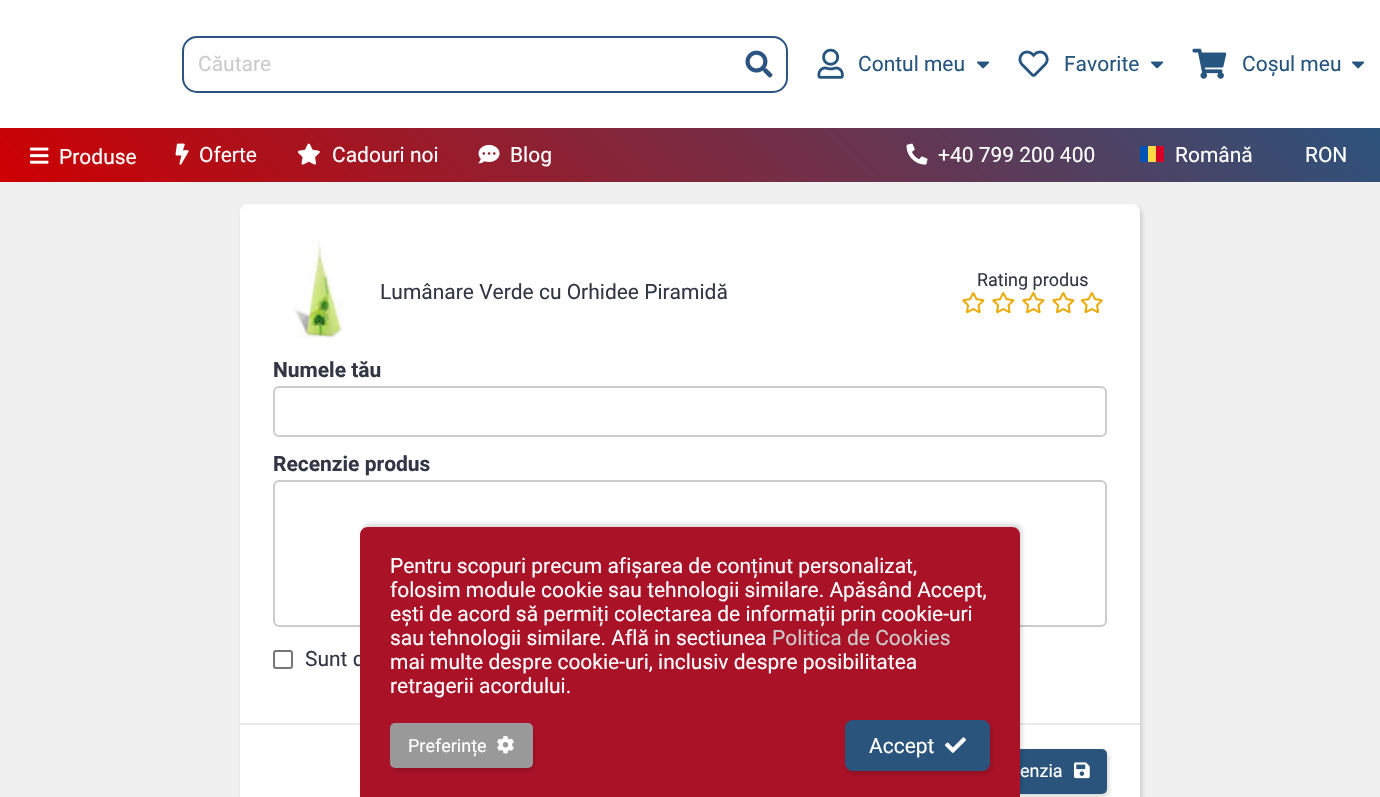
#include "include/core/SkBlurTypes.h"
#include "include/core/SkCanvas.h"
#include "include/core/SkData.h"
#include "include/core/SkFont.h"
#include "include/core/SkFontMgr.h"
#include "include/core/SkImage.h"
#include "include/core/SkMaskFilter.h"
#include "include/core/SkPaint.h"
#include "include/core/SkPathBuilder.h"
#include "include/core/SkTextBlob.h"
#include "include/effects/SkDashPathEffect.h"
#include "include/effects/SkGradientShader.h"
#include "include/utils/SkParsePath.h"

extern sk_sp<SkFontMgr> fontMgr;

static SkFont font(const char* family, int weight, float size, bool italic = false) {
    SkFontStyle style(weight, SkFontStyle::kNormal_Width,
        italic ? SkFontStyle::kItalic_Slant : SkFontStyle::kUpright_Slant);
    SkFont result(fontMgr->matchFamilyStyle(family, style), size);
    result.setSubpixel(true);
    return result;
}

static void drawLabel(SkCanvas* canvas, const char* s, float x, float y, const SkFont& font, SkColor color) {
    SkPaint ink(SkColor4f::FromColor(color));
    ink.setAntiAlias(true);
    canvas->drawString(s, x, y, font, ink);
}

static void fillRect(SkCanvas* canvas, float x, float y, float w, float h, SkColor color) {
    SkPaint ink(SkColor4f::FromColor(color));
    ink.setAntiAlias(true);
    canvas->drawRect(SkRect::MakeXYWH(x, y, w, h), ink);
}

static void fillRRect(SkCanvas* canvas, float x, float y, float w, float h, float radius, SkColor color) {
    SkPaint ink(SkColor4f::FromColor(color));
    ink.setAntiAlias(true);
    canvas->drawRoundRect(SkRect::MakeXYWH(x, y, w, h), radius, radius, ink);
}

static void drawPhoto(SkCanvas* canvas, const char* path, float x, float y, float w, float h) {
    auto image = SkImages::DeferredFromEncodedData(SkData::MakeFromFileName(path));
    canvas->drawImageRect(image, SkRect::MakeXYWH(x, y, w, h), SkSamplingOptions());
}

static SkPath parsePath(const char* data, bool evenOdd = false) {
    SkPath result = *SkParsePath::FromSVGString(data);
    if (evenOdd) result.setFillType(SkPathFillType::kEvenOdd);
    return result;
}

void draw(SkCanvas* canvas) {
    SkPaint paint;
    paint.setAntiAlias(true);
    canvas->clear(0xFFF0F0F0);
    fillRect(canvas, 0, 0, 1380, 128, 0xFFFFFFFF);
    paint.setStroke(true);
    paint.setStrokeWidth(2);
    paint.setColor(0xFF2B5482);
    canvas->drawRoundRect(SkRect::MakeXYWH(183, 37, 604, 55), 14, 14, paint);
    SkFont font1 = font("Roboto", 400, 21);
    drawLabel(canvas, "Căutare", 198, 71, font1, 0xFFCCCCCC);
    drawPhoto(canvas, "assets/img1.png", 745, 50, 28, 28);
    drawPhoto(canvas, "assets/img2.png", 817, 48, 27, 31);
    drawLabel(canvas, "Contul meu", 858, 71, font1, 0xFF26557F);
    drawPhoto(canvas, "assets/img3.png", 977, 61, 13, 8);
    drawPhoto(canvas, "assets/img4.png", 1018, 50, 31, 27);
    drawLabel(canvas, "Favorite", 1064, 71, font1, 0xFF26557F);
    drawPhoto(canvas, "assets/img3.png", 1151, 61, 13, 8);
    drawPhoto(canvas, "assets/img5.png", 1192, 48, 35, 31);
    drawLabel(canvas, "Coșul meu", 1242, 71, font1, 0xFF26557F);
    drawPhoto(canvas, "assets/img3.png", 1352, 61, 13, 8);
    paint.setStroke(false);
    {
        const SkColor colors[] = {0xFFCE0002, 0xFF2C537C};
        const float stops[] = {0, 1};
        const SkPoint ends[] = {{332, 513}, {1049, -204}};
        paint.setShader(SkGradientShader::MakeLinear(ends, colors, stops, 2, SkTileMode::kClamp));
        paint.setAlpha(255);
    }
    canvas->drawRect(SkRect::MakeXYWH(0, 128, 1380, 54), paint);
    drawPhoto(canvas, "assets/img6.png", 30, 147, 19, 17);
    drawLabel(canvas, "Produse", 59, 164, font1, 0xFFFFFFFF);
    drawPhoto(canvas, "assets/img7.png", 175, 143, 14, 22);
    drawLabel(canvas, "Oferte", 199, 162, font1, 0xFFFFFFFF);
    drawPhoto(canvas, "assets/img8.png", 297, 143, 23, 22);
    drawLabel(canvas, "Cadouri noi", 332, 162, font1, 0xFFFFFFFF);
    drawPhoto(canvas, "assets/img9.png", 478, 144, 22, 20);
    drawLabel(canvas, "Blog", 510, 162, font1, 0xFFFFFFFF);
    drawPhoto(canvas, "assets/img10.png", 906, 143, 22, 22);
    drawLabel(canvas, "+40 799 200 400", 938, 162, font1, 0xFFFFFFFF);
    fillRect(canvas, 1148, 146, 8, 16, 0xFFFFDA44);
    fillRect(canvas, 1140, 146, 8, 16, 0xFF0052B4);
    fillRect(canvas, 1156, 146, 8, 16, 0xFFD80027);
    drawLabel(canvas, "Română", 1175, 162, font1, 0xFFFFFFFF);
    drawLabel(canvas, "RON", 1305, 162, font1, 0xFFFFFFFF);
    paint.setShader(nullptr);
    paint.setColor(0x26000000);
    paint.setMaskFilter(SkMaskFilter::MakeBlur(kNormal_SkBlurStyle, 2));
    canvas->drawRoundRect(SkRect::MakeXYWH(242, 207, 900, 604), 8, 8, paint);
    paint.setMaskFilter(nullptr);
    fillRRect(canvas, 240, 204, 900, 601, 8, 0xFFFFFFFF);
    drawPhoto(canvas, "assets/img11.png", 293, 241, 52, 97);
    drawLabel(canvas, "Lumânare Verde cu Orhidee Piramidă", 380, 299, font1, 0xFF333745);
    SkFont font2 = font("Roboto", 400, 18);
    drawLabel(canvas, "Rating produs", 977, 286, font2, 0xFF333745);
    drawPhoto(canvas, "assets/img12.png", 962, 292, 23, 22);
    drawPhoto(canvas, "assets/img12.png", 992, 292, 23, 22);
    drawPhoto(canvas, "assets/img12.png", 1022, 292, 23, 22);
    drawPhoto(canvas, "assets/img12.png", 1052, 292, 23, 22);
    drawPhoto(canvas, "assets/img13.png", 1080, 292, 23, 22);
    SkFont font3 = font("Roboto", 700, 21);
    drawLabel(canvas, "Numele tău", 273, 377, font3, 0xFF333745);
    paint.setStroke(true);
    paint.setColor(0xFFCCCCCC);
    canvas->drawRoundRect(SkRect::MakeXYWH(274, 387, 832, 49), 5, 5, paint);
    drawLabel(canvas, "Recenzie produs", 273, 471, font3, 0xFF333745);
    canvas->drawRoundRect(SkRect::MakeXYWH(274, 481, 832, 145), 5, 5, paint);
    paint.setColor(0xFF767676);
    canvas->drawRoundRect(SkRect::MakeXYWH(274, 651, 18, 17), 2, 2, paint);
    drawLabel(canvas, "Sunt d", 305, 666, font1, 0xFF333745);
    fillRect(canvas, 240, 723, 900, 2, 0xFFEAEAEA);
    paint.setStroke(false);
    paint.setColor(0x26000000);
    paint.setMaskFilter(SkMaskFilter::MakeBlur(kNormal_SkBlurStyle, 2));
    canvas->drawRoundRect(SkRect::MakeXYWH(903, 752, 206, 45), 5, 5, paint);
    paint.setMaskFilter(nullptr);
    fillRRect(canvas, 902, 749, 205, 45, 5, 0xFF2A547C);
    drawLabel(canvas, "enzia", 1020, 777, font2, 0xFFFFFFFF);
    drawPhoto(canvas, "assets/img14.png", 1074, 762, 16, 17);
    paint.setMaskFilter(SkMaskFilter::MakeBlur(kNormal_SkBlurStyle, 2));
    canvas->drawRoundRect(SkRect::MakeXYWH(362, 524, 660, 271), 8, 8, paint);
    paint.setMaskFilter(nullptr);
    paint.setColor(0xFFAA1228);
    canvas->drawPath(parsePath("M368 527H1012C1016.5 527 1020 530.5 1020 535V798H360V535C360 530.5 363.5 527 368 527Z"), paint);
    drawLabel(canvas, "Pentru scopuri precum afișarea de conținut personalizat,", 390, 573, font1, 0xFFFFFFFF);
    drawLabel(canvas, "folosim module cookie sau tehnologii similare. Apăsând Accept,", 390, 597, font1, 0xFFFFFFFF);
    drawLabel(canvas, "ești de acord să permiți colectarea de informații prin cookie-uri", 390, 621, font1, 0xFFFFFFFF);
    drawLabel(canvas, "sau tehnologii similare. Află in sectiunea", 390, 645, font1, 0xFFFFFFFF);
    drawLabel(canvas, "Politica de Cookies", 772, 645, font1, 0xFFCCCCCC);
    drawLabel(canvas, "mai multe despre cookie-uri, inclusiv despre posibilitatea", 390, 669, font1, 0xFFFFFFFF);
    drawLabel(canvas, "retragerii acordului.", 390, 693, font1, 0xFFFFFFFF);
    paint.setColor(0x26000000);
    paint.setMaskFilter(SkMaskFilter::MakeBlur(kNormal_SkBlurStyle, 2));
    canvas->drawRoundRect(SkRect::MakeXYWH(392, 726, 142, 45), 5, 5, paint);
    paint.setMaskFilter(nullptr);
    fillRRect(canvas, 390, 723, 143, 45, 5, 0xFF999999);
    drawLabel(canvas, "Preferințe", 408, 752, font2, 0xFFFFFFFF);
    drawPhoto(canvas, "assets/img15.png", 497, 736, 17, 18);
    paint.setMaskFilter(SkMaskFilter::MakeBlur(kNormal_SkBlurStyle, 2));
    canvas->drawRoundRect(SkRect::MakeXYWH(846, 723, 146, 51), 8, 8, paint);
    paint.setMaskFilter(nullptr);
    fillRRect(canvas, 845, 720, 145, 51, 8, 0xFF2A547C);
    drawLabel(canvas, "Accept", 869, 753, font1, 0xFFFFFFFF);
    drawPhoto(canvas, "assets/img16.png", 945, 737, 21, 16);
}
